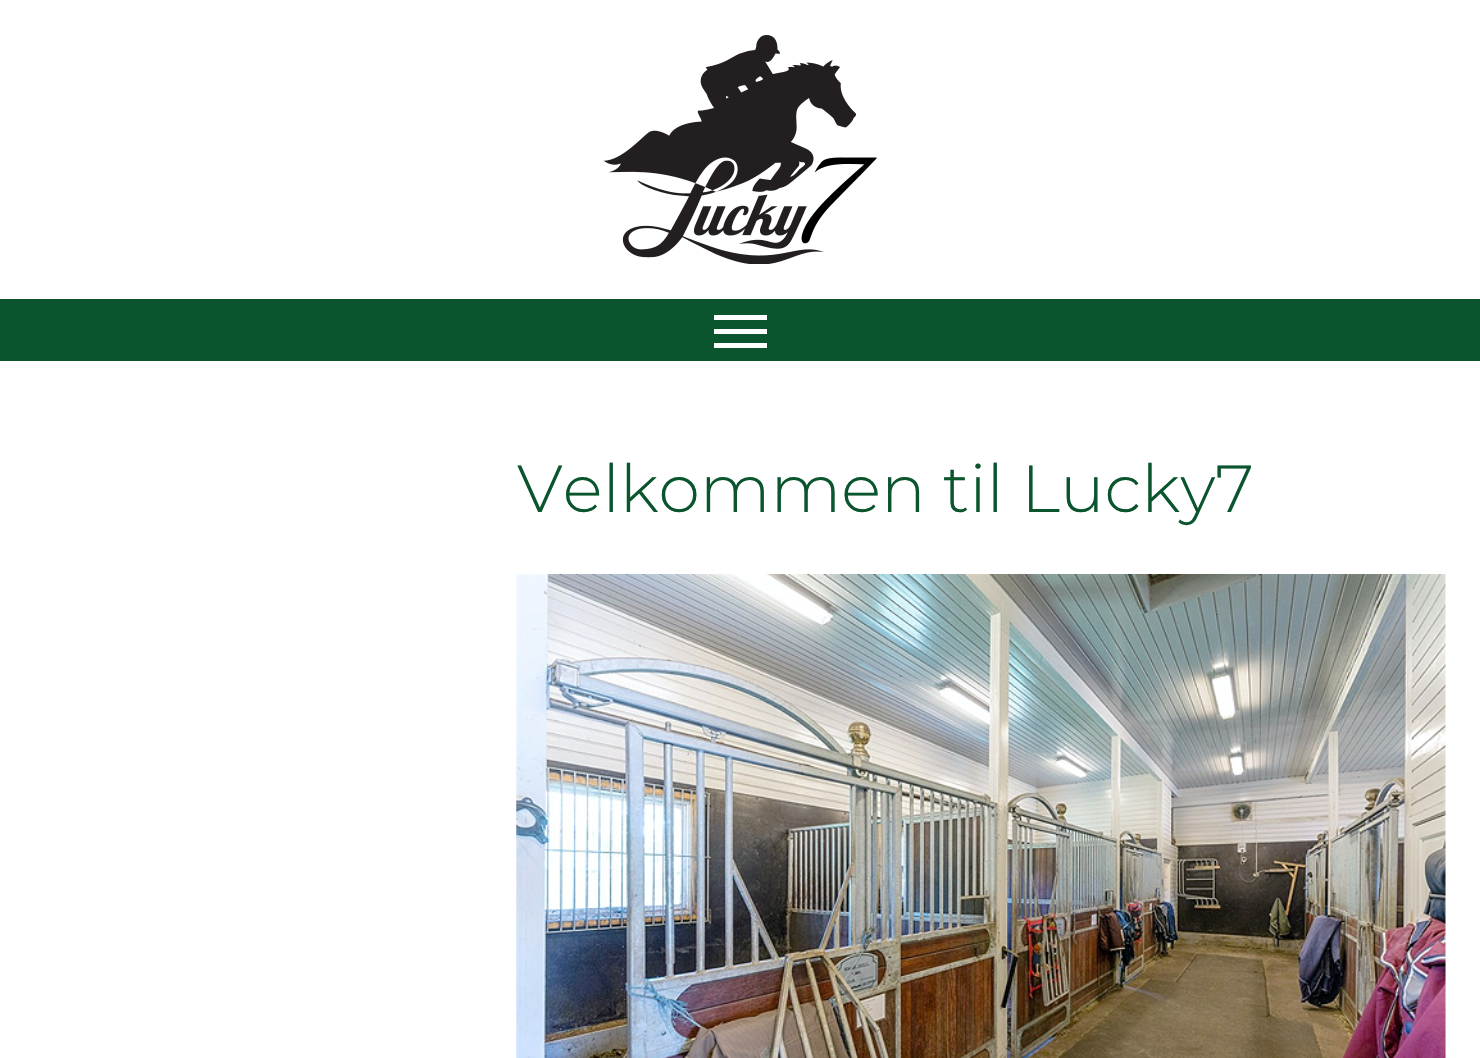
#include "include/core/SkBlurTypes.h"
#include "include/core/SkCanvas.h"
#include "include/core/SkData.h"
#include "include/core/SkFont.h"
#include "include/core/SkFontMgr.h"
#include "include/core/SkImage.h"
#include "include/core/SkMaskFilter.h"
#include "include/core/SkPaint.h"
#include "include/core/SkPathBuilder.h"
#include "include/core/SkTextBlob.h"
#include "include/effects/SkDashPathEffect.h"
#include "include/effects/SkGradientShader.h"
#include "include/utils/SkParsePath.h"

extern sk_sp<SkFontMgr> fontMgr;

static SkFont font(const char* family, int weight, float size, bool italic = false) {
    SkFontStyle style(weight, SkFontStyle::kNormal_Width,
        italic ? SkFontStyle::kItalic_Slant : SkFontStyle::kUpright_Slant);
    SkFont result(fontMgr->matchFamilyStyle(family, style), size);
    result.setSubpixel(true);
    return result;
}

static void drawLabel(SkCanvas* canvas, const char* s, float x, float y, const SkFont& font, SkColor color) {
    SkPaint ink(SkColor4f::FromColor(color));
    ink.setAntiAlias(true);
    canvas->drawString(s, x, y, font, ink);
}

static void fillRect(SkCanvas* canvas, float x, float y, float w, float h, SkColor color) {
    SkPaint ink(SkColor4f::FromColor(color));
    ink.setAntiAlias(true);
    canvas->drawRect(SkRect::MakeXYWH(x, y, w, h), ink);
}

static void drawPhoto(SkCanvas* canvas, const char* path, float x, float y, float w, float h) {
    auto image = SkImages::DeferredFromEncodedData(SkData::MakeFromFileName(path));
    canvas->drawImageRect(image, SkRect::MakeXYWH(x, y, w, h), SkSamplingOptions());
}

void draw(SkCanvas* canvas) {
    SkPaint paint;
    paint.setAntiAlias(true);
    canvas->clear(0xFFFFFFFF);
    drawPhoto(canvas, "assets/img1.png", 604, 35, 273, 229);
    fillRect(canvas, 0, 299, 1480, 62, 0xFF0A552D);
    fillRect(canvas, 714, 315, 53, 5, 0xFFFFFFFF);
    fillRect(canvas, 714, 329, 53, 5, 0xFFFFFFFF);
    fillRect(canvas, 714, 343, 53, 5, 0xFFFFFFFF);
    SkFont font1 = font("Montserrat", 300, 66.5f);
    drawLabel(canvas, "Velkommen til Lucky7", 517, 512, font1, 0xFF0A552D);
    drawPhoto(canvas, "assets/img2.png", 516, 574, 930, 484);
}
